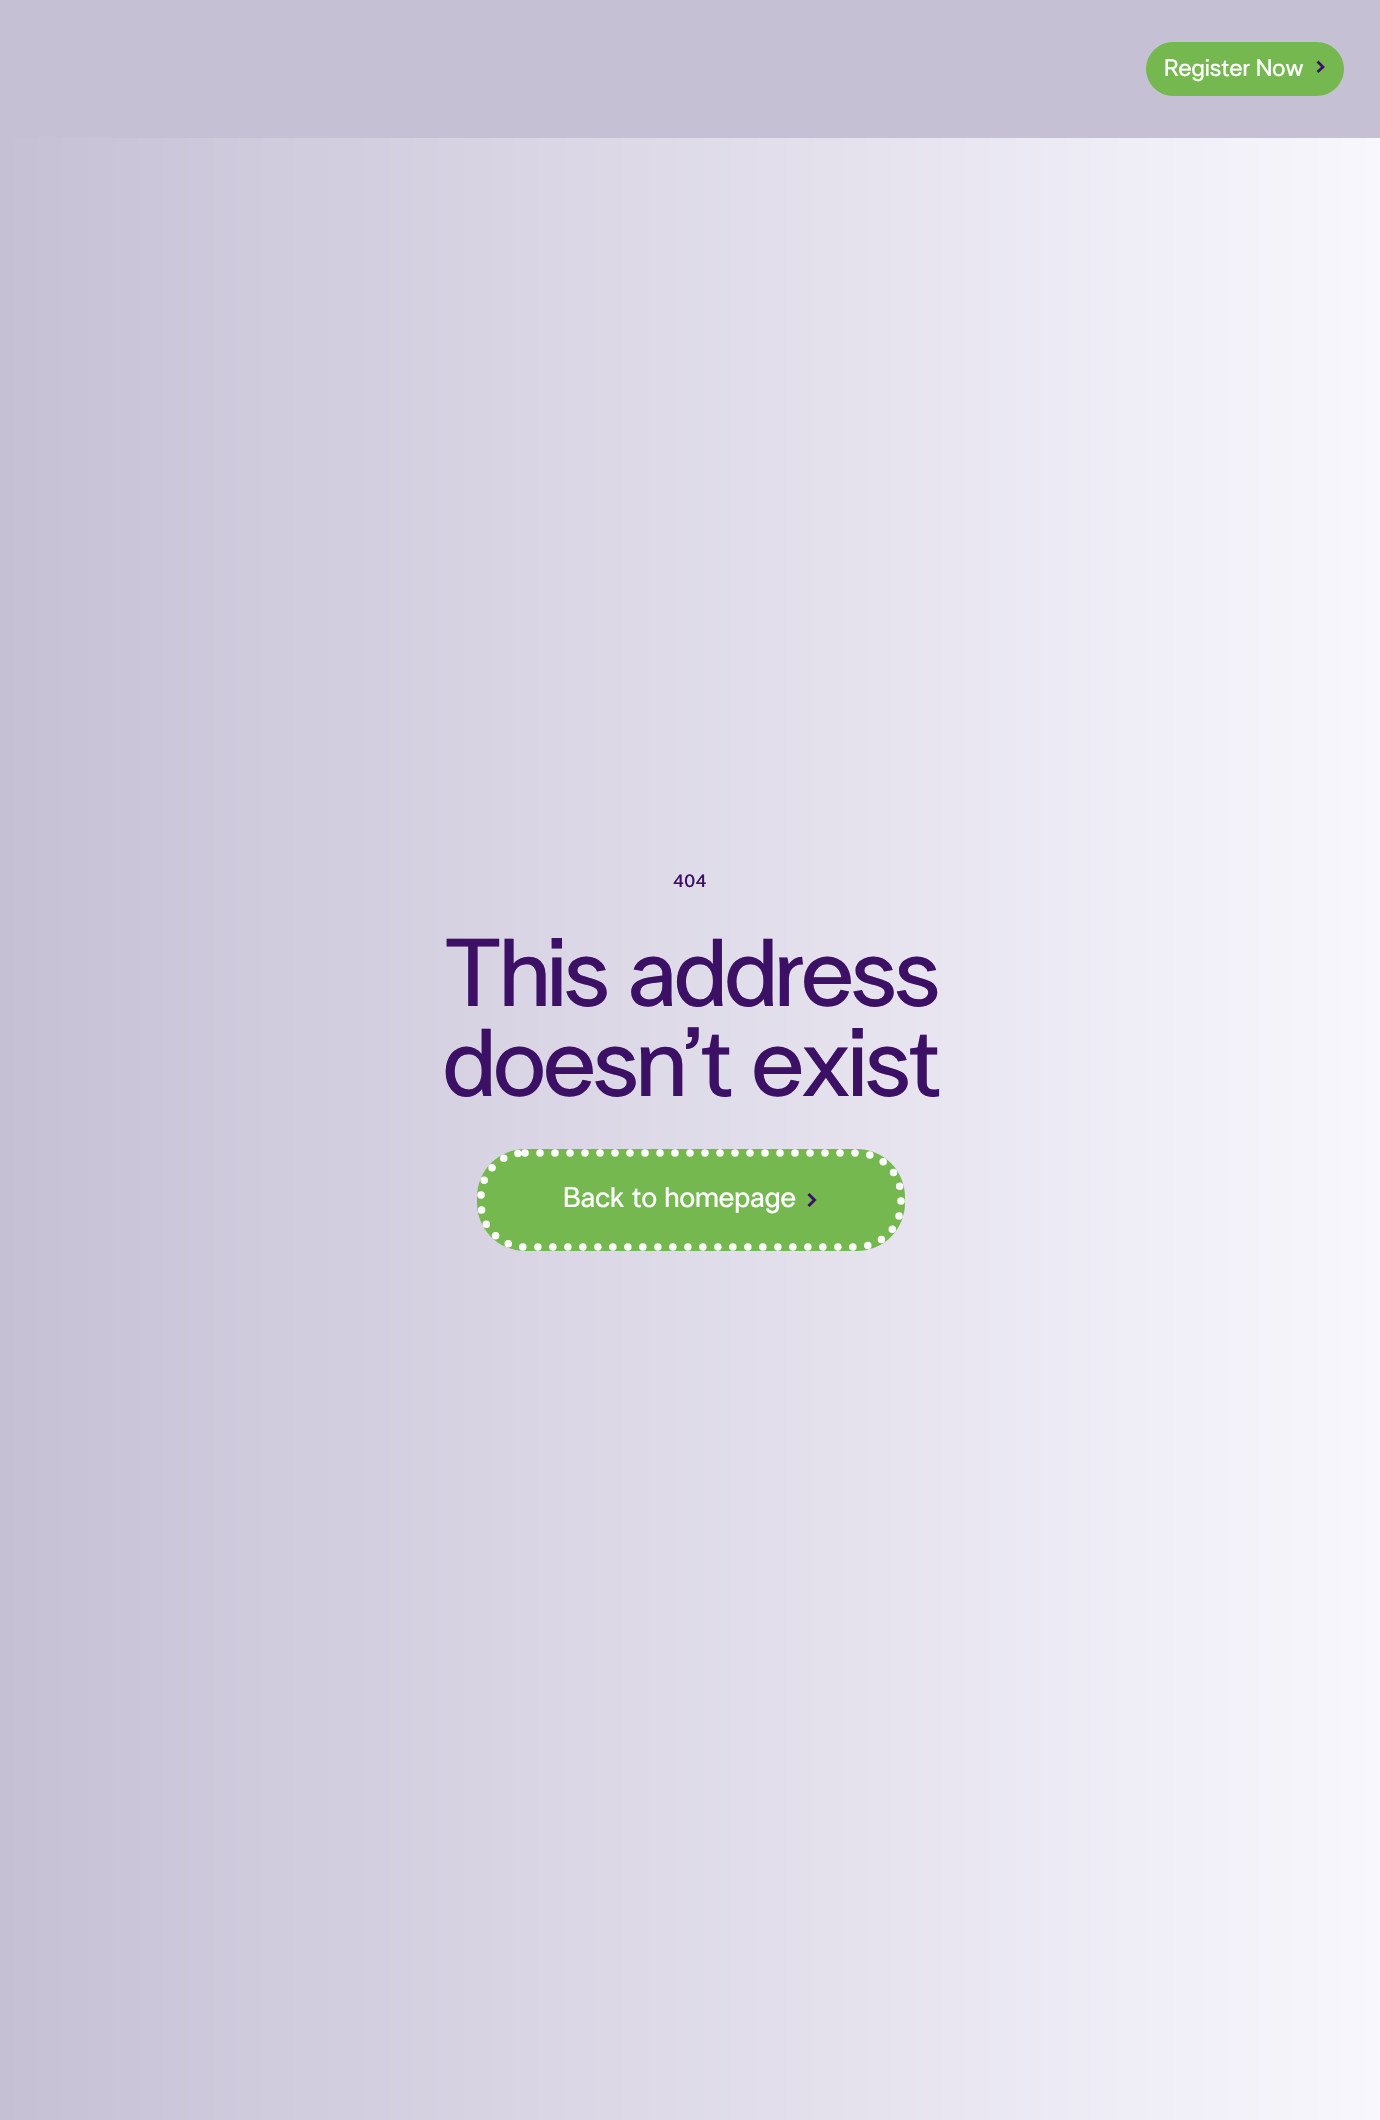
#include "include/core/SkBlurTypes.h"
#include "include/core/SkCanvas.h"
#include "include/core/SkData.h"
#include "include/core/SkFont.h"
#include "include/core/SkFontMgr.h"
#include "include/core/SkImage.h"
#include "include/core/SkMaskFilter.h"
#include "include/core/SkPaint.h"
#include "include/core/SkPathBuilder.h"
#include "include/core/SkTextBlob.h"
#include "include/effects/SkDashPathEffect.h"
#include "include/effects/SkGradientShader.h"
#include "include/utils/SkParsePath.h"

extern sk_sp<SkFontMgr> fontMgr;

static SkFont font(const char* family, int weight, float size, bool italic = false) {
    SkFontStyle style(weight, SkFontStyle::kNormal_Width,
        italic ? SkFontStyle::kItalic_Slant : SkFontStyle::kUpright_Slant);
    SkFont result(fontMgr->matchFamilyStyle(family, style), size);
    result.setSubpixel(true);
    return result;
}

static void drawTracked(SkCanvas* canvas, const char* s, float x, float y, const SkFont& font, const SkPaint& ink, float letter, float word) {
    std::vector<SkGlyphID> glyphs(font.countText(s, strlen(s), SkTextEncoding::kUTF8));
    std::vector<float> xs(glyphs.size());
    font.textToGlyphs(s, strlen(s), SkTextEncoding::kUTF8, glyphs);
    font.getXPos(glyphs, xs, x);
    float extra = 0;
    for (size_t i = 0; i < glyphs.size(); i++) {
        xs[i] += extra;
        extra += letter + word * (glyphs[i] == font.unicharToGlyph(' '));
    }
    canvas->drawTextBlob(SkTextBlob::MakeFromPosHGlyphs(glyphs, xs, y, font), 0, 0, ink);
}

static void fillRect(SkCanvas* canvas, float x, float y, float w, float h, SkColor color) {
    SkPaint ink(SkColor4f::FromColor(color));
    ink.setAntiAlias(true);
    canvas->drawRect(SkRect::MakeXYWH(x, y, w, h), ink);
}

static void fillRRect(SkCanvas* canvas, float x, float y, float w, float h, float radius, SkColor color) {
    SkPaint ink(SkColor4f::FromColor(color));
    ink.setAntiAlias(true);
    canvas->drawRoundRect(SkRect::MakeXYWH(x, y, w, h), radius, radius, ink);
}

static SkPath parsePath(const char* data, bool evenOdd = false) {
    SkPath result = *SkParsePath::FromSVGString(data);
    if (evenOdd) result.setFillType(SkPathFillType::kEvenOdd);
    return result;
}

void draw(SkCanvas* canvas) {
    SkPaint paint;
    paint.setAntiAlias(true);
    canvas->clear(0xFFFFFFFF);
    fillRect(canvas, 0, 0, 1380, 138, 0xFFC6C0D5);
    fillRRect(canvas, 1146, 42, 198, 54, 27, 0xFF74B84F);
    SkFont font1 = font("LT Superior", 500, 24);
    paint.setColor(0xFFFFFFFF);
    drawTracked(canvas, "Register Now", 1164, 76, font1, paint, -0.25f, 0);
    paint.setStroke(true);
    paint.setStrokeWidth(2.7f);
    paint.setColor(0xFF3C1165);
    canvas->drawPath(parsePath("M1317.5 72L1323 67L1317.5 61.5"), paint);
    paint.setStroke(false);
    {
        const SkColor colors[] = {0xFFC6C0D5, 0xFFF8F7FD};
        const float stops[] = {0, 1};
        const SkPoint ends[] = {{0, 1061}, {1380, 1061}};
        paint.setShader(SkGradientShader::MakeLinear(ends, colors, stops, 2, SkTileMode::kClamp));
        paint.setAlpha(255);
    }
    canvas->drawRect(SkRect::MakeXYWH(0, 138, 1380, 1982), paint);
    SkFont font2 = font("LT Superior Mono", 600, 18);
    paint.setShader(nullptr);
    paint.setColor(0xFF3C1165);
    drawTracked(canvas, "404", 673, 887, font2, paint, 0.5f, 0);
    SkFont font3 = font("LT Superior", 500, 96);
    drawTracked(canvas, "This address", 443, 1006, font3, paint, -3.8f, 0);
    drawTracked(canvas, "doesn’t exist", 442, 1096, font3, paint, -3.8f, 0);
    fillRRect(canvas, 477, 1149, 428, 102, 48, 0xFF74B84F);
    paint.setStroke(true);
    paint.setStrokeWidth(7.5f);
    paint.setStrokeCap(SkPaint::kRound_Cap);
    paint.setColor(0xFFFFFFFF);
    paint.setPathEffect(SkDashPathEffect::Make({{0, 15}}, 0));
    canvas->drawPath(parsePath("M525 1153H856.5C881 1153 901 1172.5 901 1197V1203C901 1227.5 881 1247 856.5 1247H525C500.5 1247 481 1227.5 481 1203V1197C481 1172.5 500.5 1153 525 1153Z"), paint);
    paint.setPathEffect(nullptr);
    SkFont font4 = font("LT Superior", 500, 28.5f);
    paint.setStroke(false);
    drawTracked(canvas, "Back to homepage", 563, 1207, font4, paint, -0.25f, 0);
    paint.setStroke(true);
    paint.setStrokeWidth(3);
    paint.setStrokeCap(SkPaint::kButt_Cap);
    paint.setColor(0xFF3C1165);
    canvas->drawPath(parsePath("M808.5 1206L814.5 1200L808.5 1194"), paint);
}
